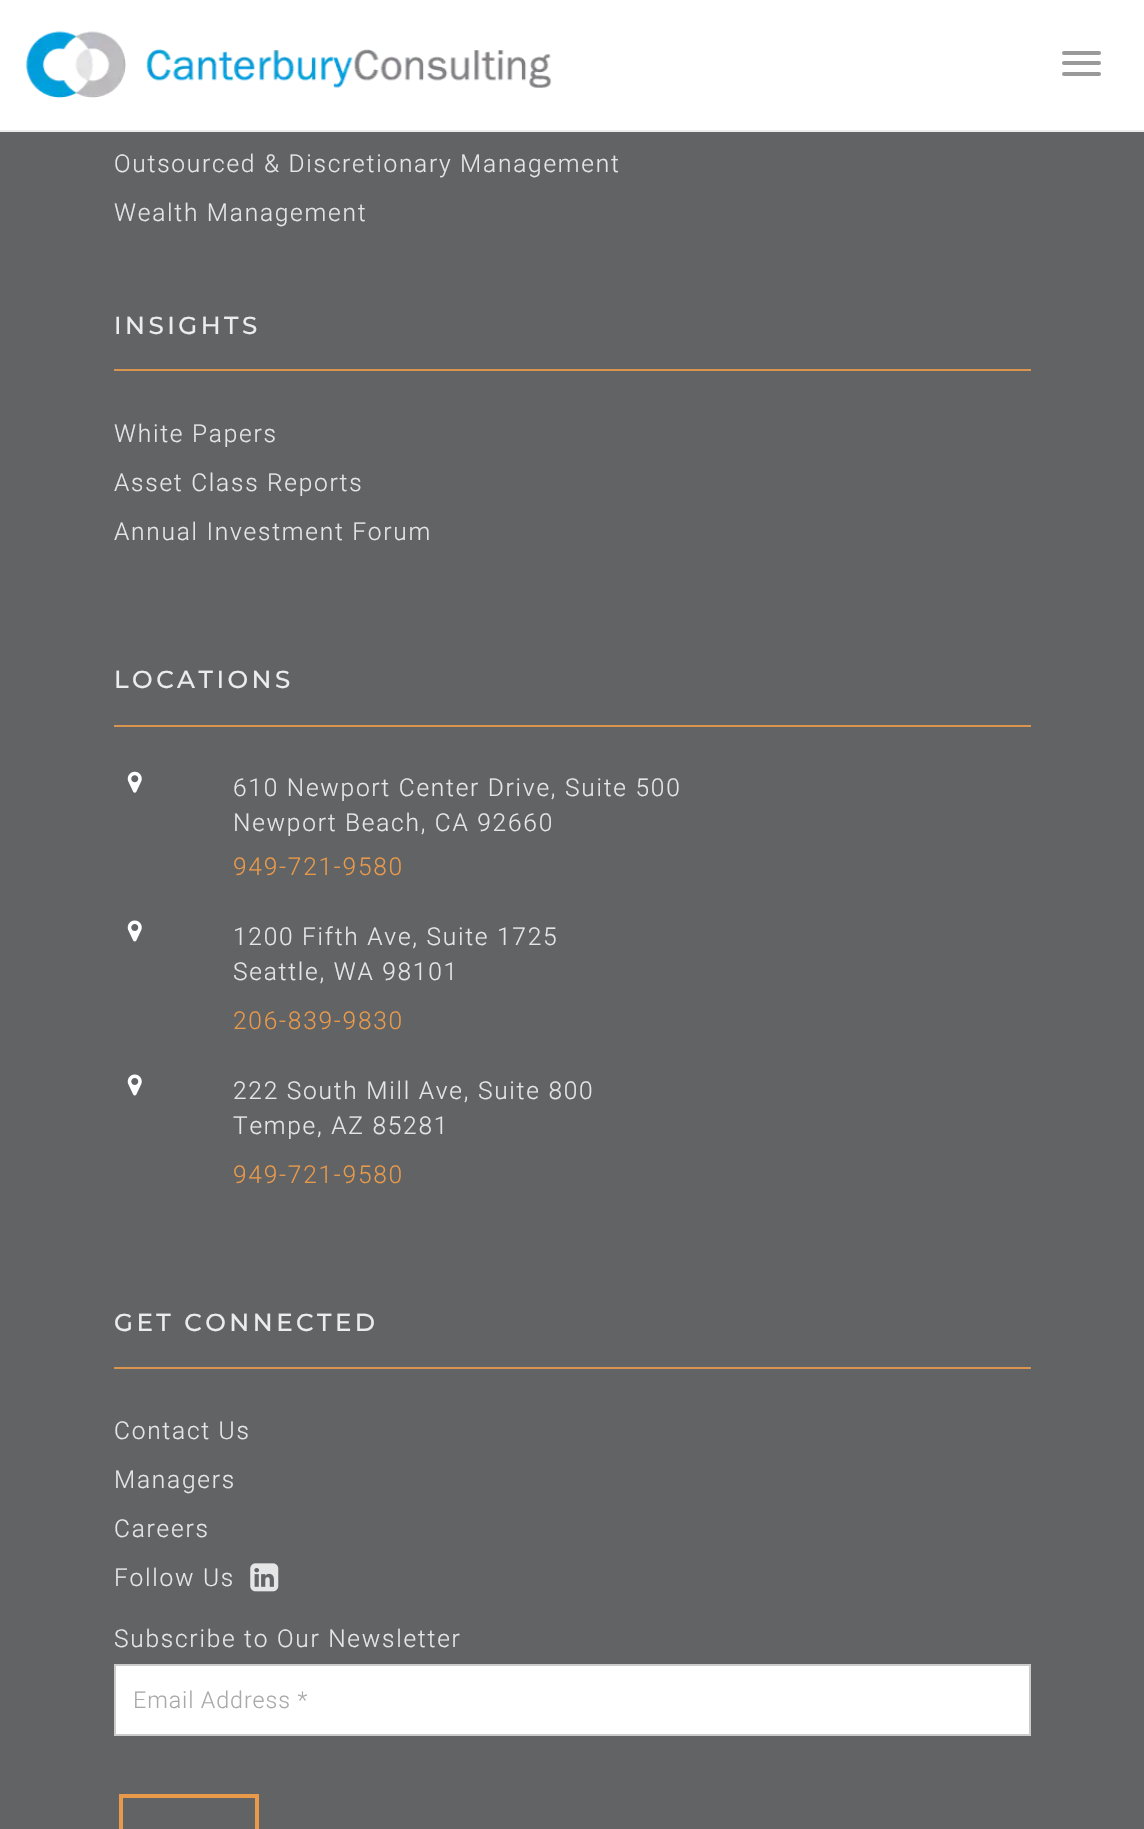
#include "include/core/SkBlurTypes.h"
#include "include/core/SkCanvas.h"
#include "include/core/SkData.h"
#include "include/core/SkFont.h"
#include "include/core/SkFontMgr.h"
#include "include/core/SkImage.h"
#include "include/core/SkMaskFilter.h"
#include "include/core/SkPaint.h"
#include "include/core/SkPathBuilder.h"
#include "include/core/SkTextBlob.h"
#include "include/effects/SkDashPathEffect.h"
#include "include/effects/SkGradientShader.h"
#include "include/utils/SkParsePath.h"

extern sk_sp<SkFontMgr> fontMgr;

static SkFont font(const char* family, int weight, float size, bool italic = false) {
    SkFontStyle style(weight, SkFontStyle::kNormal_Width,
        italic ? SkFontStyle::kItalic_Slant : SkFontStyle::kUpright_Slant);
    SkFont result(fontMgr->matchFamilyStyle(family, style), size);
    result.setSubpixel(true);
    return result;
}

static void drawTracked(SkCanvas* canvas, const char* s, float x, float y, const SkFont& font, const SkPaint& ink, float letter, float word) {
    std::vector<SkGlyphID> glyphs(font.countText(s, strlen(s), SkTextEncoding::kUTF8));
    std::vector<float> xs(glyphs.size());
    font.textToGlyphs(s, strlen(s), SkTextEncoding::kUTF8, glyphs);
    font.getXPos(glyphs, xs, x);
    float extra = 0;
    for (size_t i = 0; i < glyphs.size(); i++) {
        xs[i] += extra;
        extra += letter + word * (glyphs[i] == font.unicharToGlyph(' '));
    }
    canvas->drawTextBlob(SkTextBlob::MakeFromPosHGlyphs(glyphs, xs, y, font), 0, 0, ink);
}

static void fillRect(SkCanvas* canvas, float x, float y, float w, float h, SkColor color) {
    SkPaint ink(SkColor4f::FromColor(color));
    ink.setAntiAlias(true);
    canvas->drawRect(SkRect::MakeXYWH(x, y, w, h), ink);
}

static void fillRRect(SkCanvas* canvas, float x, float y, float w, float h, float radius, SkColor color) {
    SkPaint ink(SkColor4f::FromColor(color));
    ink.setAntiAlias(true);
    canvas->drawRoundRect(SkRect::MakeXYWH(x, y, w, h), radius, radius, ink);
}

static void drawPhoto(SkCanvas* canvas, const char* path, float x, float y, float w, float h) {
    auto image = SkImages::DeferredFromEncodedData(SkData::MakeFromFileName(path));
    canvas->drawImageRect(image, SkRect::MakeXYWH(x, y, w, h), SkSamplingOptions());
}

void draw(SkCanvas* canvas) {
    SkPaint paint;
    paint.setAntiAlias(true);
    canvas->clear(0xFF616365);
    fillRect(canvas, 0, 0, 1144, 130, 0xFFFFFFFF);
    fillRect(canvas, 0, 130, 1144, 2, 0xFFECECEC);
    drawPhoto(canvas, "assets/img1.png", 26, 31, 526, 67);
    fillRRect(canvas, 1062, 51, 39, 4, 2, 0xFF999999);
    fillRRect(canvas, 1062, 61, 39, 4, 2, 0xFF999999);
    fillRRect(canvas, 1062, 72, 39, 4, 2, 0xFF999999);
    SkFont font1 = font("Roboto", 300, 24.5f);
    paint.setColor(0xFFE6E6E6);
    drawTracked(canvas, "Outsourced & Discretionary Management", 114, 172, font1, paint, 1.75f, 0);
    drawTracked(canvas, "Wealth Management", 114, 221, font1, paint, 1.75f, 0);
    fillRect(canvas, 114, 369, 917, 2, 0xFFDB944D);
    SkFont font2 = font("Montserrat", 500, 24.5f);
    paint.setColor(0xFFECECEC);
    drawTracked(canvas, "INSIGHTS", 114, 334, font2, paint, 3.5f, 0);
    paint.setColor(0xFFE6E6E6);
    drawTracked(canvas, "White Papers", 114, 442, font1, paint, 1.75f, 0);
    drawTracked(canvas, "Asset Class Reports", 114, 491, font1, paint, 1.75f, 0);
    drawTracked(canvas, "Annual Investment Forum", 114, 540, font1, paint, 1.75f, 0);
    fillRect(canvas, 114, 725, 917, 2, 0xFFDB944D);
    paint.setColor(0xFFECECEC);
    drawTracked(canvas, "LOCATIONS", 114, 688, font2, paint, 3.5f, 0);
    drawPhoto(canvas, "assets/img2.png", 127, 771, 15, 22);
    paint.setColor(0xFFE6E6E6);
    drawTracked(canvas, "610 Newport Center Drive, Suite 500", 233, 796, font1, paint, 1.75f, 0);
    drawTracked(canvas, "Newport Beach, CA 92660", 233, 831, font1, paint, 1.75f, 0);
    paint.setColor(0xFFE9994A);
    drawTracked(canvas, "949-721-9580", 233, 875, font1, paint, 1.75f, 0);
    drawPhoto(canvas, "assets/img3.png", 127, 920, 15, 22);
    paint.setColor(0xFFE6E6E6);
    drawTracked(canvas, "1200 Fifth Ave, Suite 1725", 233, 945, font1, paint, 1.75f, 0);
    drawTracked(canvas, "Seattle, WA 98101", 233, 980, font1, paint, 1.75f, 0);
    paint.setColor(0xFFE9994A);
    drawTracked(canvas, "206-839-9830", 233, 1029, font1, paint, 1.75f, 0);
    drawPhoto(canvas, "assets/img3.png", 127, 1074, 15, 22);
    paint.setColor(0xFFE6E6E6);
    drawTracked(canvas, "222 South Mill Ave, Suite 800", 233, 1099, font1, paint, 1.75f, 0);
    drawTracked(canvas, "Tempe, AZ 85281", 233, 1134, font1, paint, 1.75f, 0);
    paint.setColor(0xFFE9994A);
    drawTracked(canvas, "949-721-9580", 233, 1183, font1, paint, 1.75f, 0);
    fillRect(canvas, 114, 1367, 917, 2, 0xFFDB944D);
    paint.setColor(0xFFECECEC);
    drawTracked(canvas, "GET CONNECTED", 114, 1331, font2, paint, 3.5f, 0);
    paint.setColor(0xFFE6E6E6);
    drawTracked(canvas, "Contact Us", 114, 1439, font1, paint, 1.75f, 0);
    drawTracked(canvas, "Managers", 114, 1488, font1, paint, 1.75f, 0);
    drawTracked(canvas, "Careers", 114, 1537, font1, paint, 1.75f, 0);
    drawTracked(canvas, "Follow Us", 114, 1586, font1, paint, 1.75f, 0);
    drawPhoto(canvas, "assets/img4.png", 250, 1563, 29, 29);
    drawTracked(canvas, "Subscribe to Our Newsletter", 114, 1647, font1, paint, 1.75f, 0);
    paint.setColor(0xFFFFFFFF);
    canvas->drawRect(SkRect::MakeXYWH(115, 1665, 915, 70), paint);
    paint.setStroke(true);
    paint.setStrokeWidth(2);
    paint.setColor(0xFFCCCCCC);
    canvas->drawRect(SkRect::MakeXYWH(115, 1665, 915, 70), paint);
    SkFont font3 = font("Roboto", 300, 23.25f);
    paint.setStroke(false);
    paint.setColor(0xFFA9A9A9);
    drawTracked(canvas, "Email Address *", 133, 1708, font3, paint, 0.9f, 0);
    paint.setStroke(true);
    paint.setStrokeWidth(4);
    paint.setColor(0xFFE9994A);
    canvas->drawRect(SkRect::MakeXYWH(121, 1796, 136, 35), paint);
}
